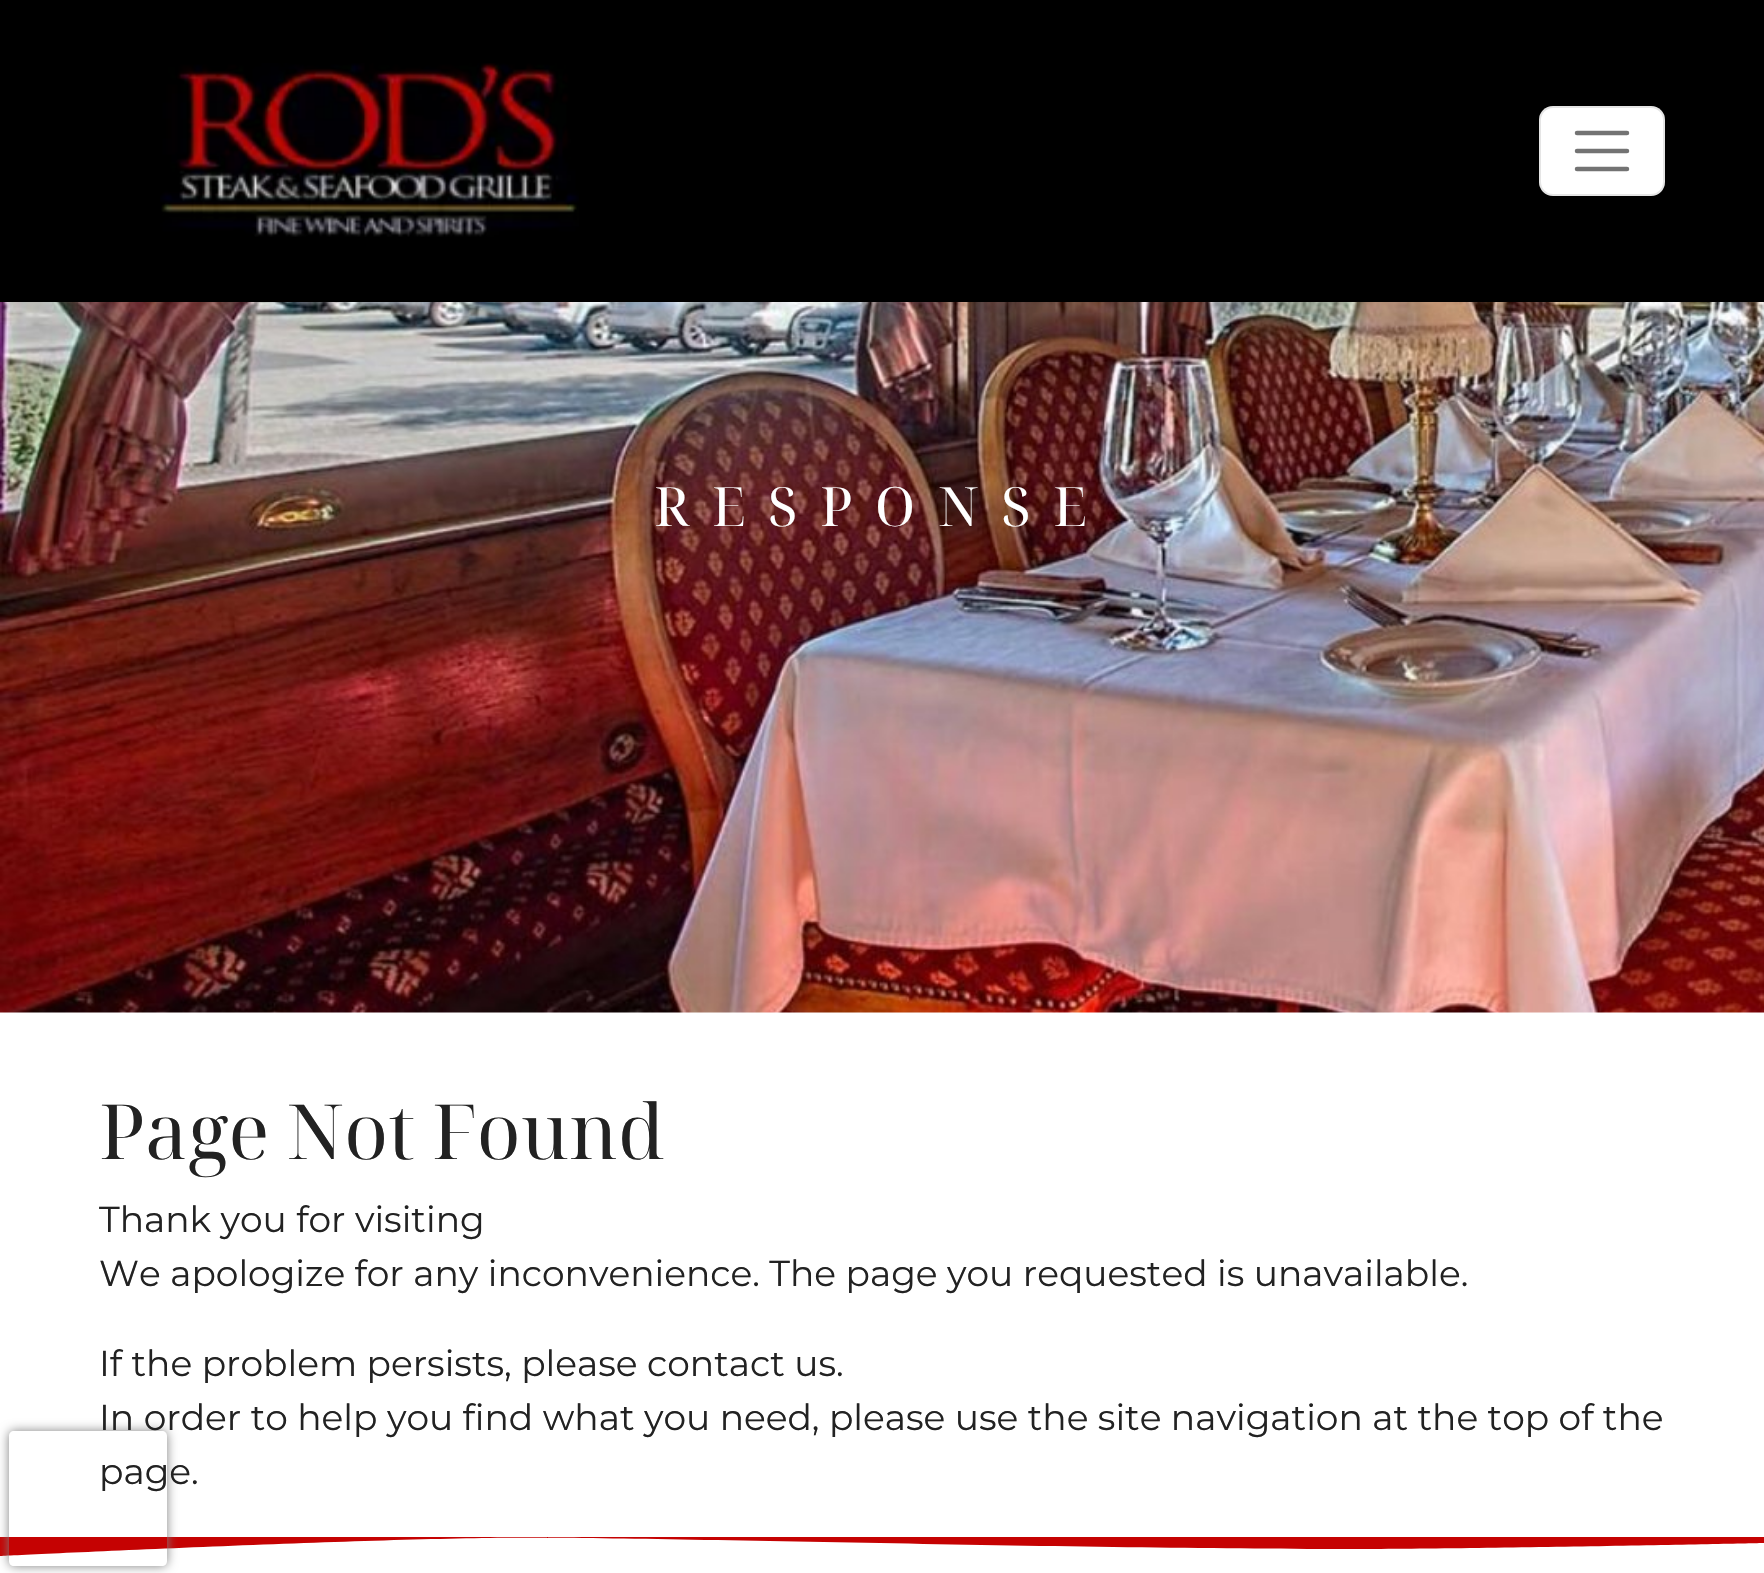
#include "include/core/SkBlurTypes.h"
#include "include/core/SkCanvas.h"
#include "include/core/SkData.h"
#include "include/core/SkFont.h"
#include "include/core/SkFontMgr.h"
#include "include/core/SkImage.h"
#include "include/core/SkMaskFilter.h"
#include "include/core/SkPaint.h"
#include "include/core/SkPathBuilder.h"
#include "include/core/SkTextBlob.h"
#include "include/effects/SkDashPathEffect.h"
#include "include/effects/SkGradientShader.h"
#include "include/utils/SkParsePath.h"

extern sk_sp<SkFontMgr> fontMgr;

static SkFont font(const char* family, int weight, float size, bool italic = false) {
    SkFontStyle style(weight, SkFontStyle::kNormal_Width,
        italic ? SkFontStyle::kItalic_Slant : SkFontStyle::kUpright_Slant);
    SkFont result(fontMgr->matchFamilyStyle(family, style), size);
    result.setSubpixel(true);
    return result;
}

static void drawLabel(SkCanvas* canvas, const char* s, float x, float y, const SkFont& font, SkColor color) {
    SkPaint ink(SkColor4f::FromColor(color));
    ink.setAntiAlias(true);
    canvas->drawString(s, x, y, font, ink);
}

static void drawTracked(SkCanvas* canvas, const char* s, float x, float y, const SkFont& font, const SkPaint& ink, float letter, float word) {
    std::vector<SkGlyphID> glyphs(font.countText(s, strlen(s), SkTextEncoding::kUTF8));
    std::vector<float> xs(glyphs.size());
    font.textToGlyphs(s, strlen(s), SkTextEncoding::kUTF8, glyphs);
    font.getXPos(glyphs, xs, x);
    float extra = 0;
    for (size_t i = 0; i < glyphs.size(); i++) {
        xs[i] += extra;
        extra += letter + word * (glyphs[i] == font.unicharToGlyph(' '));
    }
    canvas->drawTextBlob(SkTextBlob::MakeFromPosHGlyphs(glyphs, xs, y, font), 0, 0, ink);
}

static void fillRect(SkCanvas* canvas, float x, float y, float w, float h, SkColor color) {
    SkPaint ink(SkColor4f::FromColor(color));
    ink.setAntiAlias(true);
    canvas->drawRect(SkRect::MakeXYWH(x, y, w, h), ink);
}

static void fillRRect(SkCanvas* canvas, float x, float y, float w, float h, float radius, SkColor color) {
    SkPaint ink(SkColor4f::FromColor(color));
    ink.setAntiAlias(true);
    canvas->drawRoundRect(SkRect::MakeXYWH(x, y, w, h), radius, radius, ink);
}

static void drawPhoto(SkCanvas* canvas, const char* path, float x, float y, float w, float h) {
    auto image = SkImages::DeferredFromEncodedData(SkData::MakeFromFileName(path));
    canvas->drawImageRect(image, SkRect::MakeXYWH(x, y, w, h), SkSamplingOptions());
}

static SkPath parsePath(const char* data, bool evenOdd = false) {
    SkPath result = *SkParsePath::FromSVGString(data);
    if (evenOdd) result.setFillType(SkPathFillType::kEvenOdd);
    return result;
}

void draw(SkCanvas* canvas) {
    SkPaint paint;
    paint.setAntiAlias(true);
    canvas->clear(0xFFFFFFFF);
    fillRect(canvas, 0, 0, 1764, 302, 0xFF000000);
    drawPhoto(canvas, "assets/img1.png", 160, 63, 419, 174);
    fillRRect(canvas, 1539, 106, 126, 90, 14, 0xFFFFFFFF);
    paint.setStroke(true);
    paint.setStrokeWidth(2);
    paint.setColor(0x1A000000);
    canvas->drawRoundRect(SkRect::MakeXYWH(1540, 107, 124, 88), 13, 13, paint);
    paint.setStrokeWidth(4.5f);
    paint.setStrokeCap(SkPaint::kRound_Cap);
    paint.setColor(0xFF737373);
    canvas->drawPath(parsePath("M1577 133H1627M1577 151H1627M1577 169H1627"), paint);
    paint.setStroke(false);
    paint.setColor(0xFFC50202);
    canvas->drawPath(parsePath("M0 1556C0 1556 327 1540 490 1538C619 1536 1061 1549 1346 1549C1485 1549 1764 1543 1764 1543V1537H0Z"), paint);
    canvas->save();
    canvas->clipPath(parsePath("M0 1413H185V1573H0ZM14 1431H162C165 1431 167 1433 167 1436V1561C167 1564 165 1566 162 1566H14C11 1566 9 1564 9 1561V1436C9 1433 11 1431 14 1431Z", true), true);
    paint.setColor(0xFF808080);
    paint.setMaskFilter(SkMaskFilter::MakeBlur(kNormal_SkBlurStyle, 5.5f));
    canvas->drawRoundRect(SkRect::MakeXYWH(9, 1431, 158, 135), 5, 5, paint);
    paint.setMaskFilter(nullptr);
    canvas->restore();
    drawPhoto(canvas, "assets/img2.png", 0, 302, 1764, 711);
    SkFont font1 = font("Noto Serif Display", 400, 54);
    paint.setColor(0xFFFFFFFF);
    drawTracked(canvas, "RESPONSE", 654, 526, font1, paint, 22.5f, 0);
    SkFont font2 = font("Noto Serif Display", 400, 76);
    drawLabel(canvas, "Page Not Found", 99, 1159, font2, 0xFF222222);
    SkFont font3 = font("Montserrat", 400, 36);
    drawLabel(canvas, "Thank you for visiting", 99, 1232, font3, 0xFF222222);
    drawLabel(canvas, "We apologize for any inconvenience. The page you requested is unavailable.", 99, 1286, font3, 0xFF222222);
    drawLabel(canvas, "If the problem persists, please contact us.", 99, 1376, font3, 0xFF222222);
    drawLabel(canvas, "In order to help you find what you need, please use the site navigation at the top of the", 99, 1430, font3, 0xFF222222);
    drawLabel(canvas, "page.", 99, 1484, font3, 0xFF222222);
}
